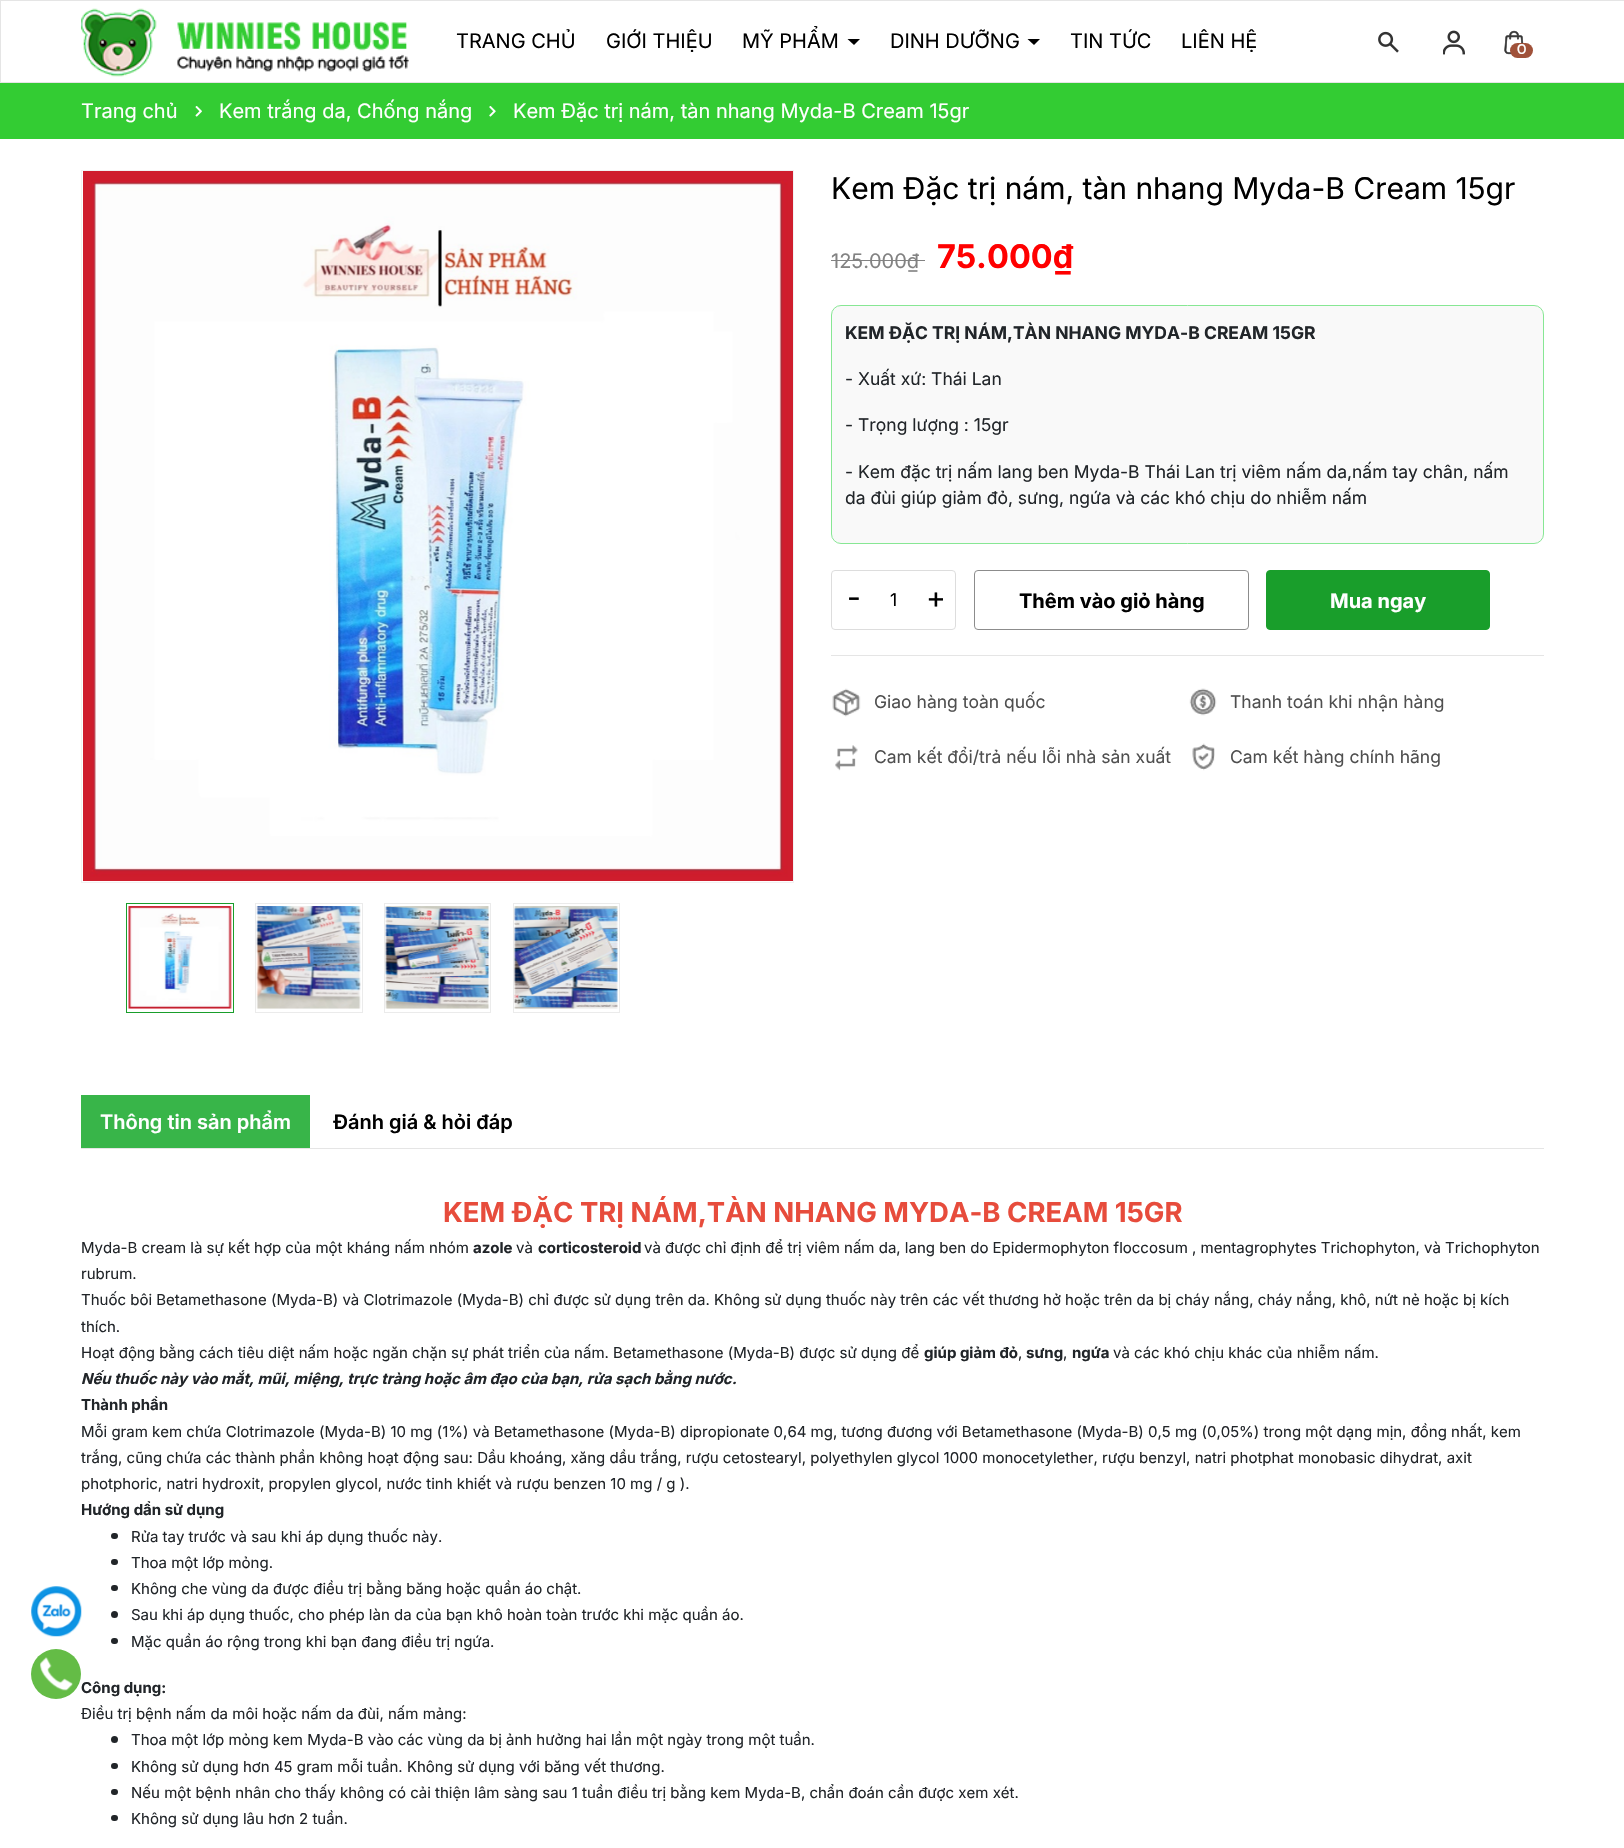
#include "include/core/SkBlurTypes.h"
#include "include/core/SkCanvas.h"
#include "include/core/SkData.h"
#include "include/core/SkFont.h"
#include "include/core/SkFontMgr.h"
#include "include/core/SkImage.h"
#include "include/core/SkMaskFilter.h"
#include "include/core/SkPaint.h"
#include "include/core/SkPathBuilder.h"
#include "include/core/SkTextBlob.h"
#include "include/effects/SkDashPathEffect.h"
#include "include/effects/SkGradientShader.h"
#include "include/utils/SkParsePath.h"

extern sk_sp<SkFontMgr> fontMgr;

static SkFont font(const char* family, int weight, float size, bool italic = false) {
    SkFontStyle style(weight, SkFontStyle::kNormal_Width,
        italic ? SkFontStyle::kItalic_Slant : SkFontStyle::kUpright_Slant);
    SkFont result(fontMgr->matchFamilyStyle(family, style), size);
    result.setSubpixel(true);
    return result;
}

static void drawLabel(SkCanvas* canvas, const char* s, float x, float y, const SkFont& font, SkColor color) {
    SkPaint ink(SkColor4f::FromColor(color));
    ink.setAntiAlias(true);
    canvas->drawString(s, x, y, font, ink);
}

static void fillRect(SkCanvas* canvas, float x, float y, float w, float h, SkColor color) {
    SkPaint ink(SkColor4f::FromColor(color));
    ink.setAntiAlias(true);
    canvas->drawRect(SkRect::MakeXYWH(x, y, w, h), ink);
}

static void fillRRect(SkCanvas* canvas, float x, float y, float w, float h, float radius, SkColor color) {
    SkPaint ink(SkColor4f::FromColor(color));
    ink.setAntiAlias(true);
    canvas->drawRoundRect(SkRect::MakeXYWH(x, y, w, h), radius, radius, ink);
}

static void drawPhoto(SkCanvas* canvas, const char* path, float x, float y, float w, float h) {
    auto image = SkImages::DeferredFromEncodedData(SkData::MakeFromFileName(path));
    canvas->drawImageRect(image, SkRect::MakeXYWH(x, y, w, h), SkSamplingOptions());
}

static SkPath parsePath(const char* data, bool evenOdd = false) {
    SkPath result = *SkParsePath::FromSVGString(data);
    if (evenOdd) result.setFillType(SkPathFillType::kEvenOdd);
    return result;
}

void draw(SkCanvas* canvas) {
    SkPaint paint;
    paint.setAntiAlias(true);
    canvas->clear(0xFFFFFFFF);
    paint.setStroke(true);
    paint.setStrokeWidth(1);
    paint.setColor(0xFFE5E5E5);
    canvas->drawRect(SkRect::MakeXYWH(0.5f, 0.5f, 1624, 82), paint);
    drawPhoto(canvas, "assets/img1.png", 81, 8, 328, 69);
    SkFont font1 = font("Inter", 400, 20);
    drawLabel(canvas, "TRANG CHỦ", 456, 48, font1, 0xFF000000);
    drawLabel(canvas, "GIỚI THIỆU", 606, 48, font1, 0xFF000000);
    drawLabel(canvas, "MỸ PHẨM", 742, 48, font1, 0xFF000000);
    paint.setStroke(false);
    paint.setColor(0xFF000000);
    canvas->drawPath(parsePath("M847.5 39H860L854 45Z"), paint);
    drawLabel(canvas, "DINH DƯỠNG", 890, 48, font1, 0xFF000000);
    canvas->drawPath(parsePath("M1027.5 39H1040L1034 45Z"), paint);
    drawLabel(canvas, "TIN TỨC", 1070, 48, font1, 0xFF000000);
    drawLabel(canvas, "LIÊN HỆ", 1181, 48, font1, 0xFF000000);
    drawPhoto(canvas, "assets/img2.png", 1378, 31, 21, 22);
    drawPhoto(canvas, "assets/img3.png", 1443, 30, 22, 25);
    drawPhoto(canvas, "assets/img4.png", 1504, 30, 20, 25);
    fillRRect(canvas, 1510, 43, 23, 15, 7.5f, 0xFFA05139);
    SkFont font2 = font("Josefin Sans", 400, 15);
    drawLabel(canvas, "0", 1517, 54, font2, 0xFFFFFFFF);
    fillRect(canvas, 0, 83, 1624, 56, 0xFF33CC33);
    drawLabel(canvas, "Trang chủ", 81, 118, font1, 0xFFFFFFFF);
    drawPhoto(canvas, "assets/img5.png", 195, 106, 7, 11);
    drawLabel(canvas, "Kem trắng da, Chống nắng", 219, 118, font1, 0xFFFFFFFF);
    drawPhoto(canvas, "assets/img6.png", 489, 106, 7, 11);
    drawLabel(canvas, "Kem Đặc trị nám, tàn nhang Myda-B Cream 15gr", 513, 118, font1, 0xFFFFFFFF);
    drawPhoto(canvas, "assets/img7.png", 31, 1586, 51, 51);
    paint.setColor(0xFF64BC46);
    canvas->drawCircle(56, 1674, 25, paint);
    drawPhoto(canvas, "assets/img8.png", 40, 1657, 33, 34);
    paint.setStroke(true);
    paint.setColor(0xFFF2F2F2);
    canvas->drawRect(SkRect::MakeXYWH(81.5f, 170.5f, 712, 712), paint);
    drawPhoto(canvas, "assets/img9.png", 83, 171, 710, 710);
    paint.setColor(0xFF199E2B);
    canvas->drawRect(SkRect::MakeXYWH(126.5f, 903.5f, 107, 109), paint);
    drawPhoto(canvas, "assets/img10.png", 128, 906, 104, 103);
    paint.setColor(0xFFEBEBEB);
    canvas->drawRect(SkRect::MakeXYWH(255.5f, 903.5f, 107, 109), paint);
    drawPhoto(canvas, "assets/img11.png", 256, 906, 105, 103);
    canvas->drawRect(SkRect::MakeXYWH(384.5f, 903.5f, 106, 109), paint);
    drawPhoto(canvas, "assets/img12.png", 385, 906, 105, 103);
    canvas->drawRect(SkRect::MakeXYWH(513.5f, 903.5f, 106, 109), paint);
    drawPhoto(canvas, "assets/img13.png", 514, 906, 104, 103);
    SkFont font3 = font("Inter", 400, 30);
    drawLabel(canvas, "Kem Đặc trị nám, tàn nhang Myda-B Cream 15gr", 831, 199, font3, 0xFF000000);
    drawLabel(canvas, "125.000₫", 831, 268, font1, 0xFF828282);
    fillRect(canvas, 831, 260, 94, 1, 0xFF828282);
    SkFont font4 = font("Inter", 700, 32.5f);
    drawLabel(canvas, "75.000₫", 937, 268, font4, 0xFFFF0000);
    paint.setStroke(false);
    paint.setColor(0xFFF9F9F9);
    canvas->drawRoundRect(SkRect::MakeXYWH(831.5f, 305.5f, 712, 238), 9.5f, 9.5f, paint);
    paint.setStroke(true);
    paint.setColor(0xFF87E794);
    canvas->drawRoundRect(SkRect::MakeXYWH(831.5f, 305.5f, 712, 238), 9.5f, 9.5f, paint);
    SkFont font5 = font("Inter", 700, 17.5f);
    drawLabel(canvas, "KEM ĐẶC TRỊ NÁM,TÀN NHANG MYDA-B CREAM 15GR", 845, 339, font5, 0xFF212529);
    SkFont font6 = font("Inter", 400, 17.5f);
    drawLabel(canvas, "- Xuất xứ: Thái Lan", 845, 385, font6, 0xFF212529);
    drawLabel(canvas, "- Trọng lượng : 15gr", 845, 431, font6, 0xFF212529);
    drawLabel(canvas, "- Kem đặc trị nấm lang ben Myda-B Thái Lan trị viêm nấm da,nấm tay chân, nấm", 845, 478, font6, 0xFF212529);
    drawLabel(canvas, "da đùi giúp giảm đỏ, sưng, ngứa và các khó chịu do nhiễm nấm", 845, 504, font6, 0xFF212529);
    paint.setColor(0xFFDDDDDD);
    canvas->drawRoundRect(SkRect::MakeXYWH(831.5f, 570.5f, 124, 59), 3.5f, 3.5f, paint);
    drawLabel(canvas, "-", 847, 608, font3, 0xFF000000);
    drawLabel(canvas, "1", 890, 606, font6, 0xFF000000);
    drawLabel(canvas, "+", 926, 608, font3, 0xFF000000);
    paint.setColor(0xFF8C8C8C);
    canvas->drawRoundRect(SkRect::MakeXYWH(974.5f, 570.5f, 274, 59), 3.5f, 3.5f, paint);
    SkFont font7 = font("Inter", 700, 20);
    drawLabel(canvas, "Thêm vào giỏ hàng", 1019, 608, font7, 0xFF000000);
    paint.setStroke(false);
    paint.setColor(0xFF199E2B);
    canvas->drawRoundRect(SkRect::MakeXYWH(1266.5f, 570.5f, 223, 59), 3.5f, 3.5f, paint);
    paint.setStroke(true);
    canvas->drawRoundRect(SkRect::MakeXYWH(1266.5f, 570.5f, 223, 59), 3.5f, 3.5f, paint);
    drawLabel(canvas, "Mua ngay", 1330, 608, font7, 0xFFFFFFFF);
    fillRect(canvas, 831, 655, 713, 1, 0xFFE5E5E5);
    drawPhoto(canvas, "assets/img14.png", 832, 688, 29, 29);
    drawLabel(canvas, "Giao hàng toàn quốc", 874, 708, font6, 0xFF4F4F4F);
    drawPhoto(canvas, "assets/img15.png", 1189, 688, 28, 28);
    drawLabel(canvas, "Thanh toán khi nhận hàng", 1230, 708, font6, 0xFF4F4F4F);
    drawPhoto(canvas, "assets/img16.png", 835, 745, 23, 26);
    drawLabel(canvas, "Cam kết đổi/trả nếu lỗi nhà sản xuất", 874, 763, font6, 0xFF4F4F4F);
    drawPhoto(canvas, "assets/img17.png", 1192, 743, 23, 28);
    drawLabel(canvas, "Cam kết hàng chính hãng", 1230, 763, font6, 0xFF4F4F4F);
    fillRect(canvas, 81, 1148, 1463, 1, 0xFFE5E5E5);
    fillRect(canvas, 81, 1095, 229, 53, 0xFF38B549);
    SkFont font8 = font("Inter", 600, 20);
    drawLabel(canvas, "Thông tin sản phẩm", 100, 1129, font8, 0xFFFFFFFF);
    drawLabel(canvas, "Đánh giá & hỏi đáp", 333, 1129, font8, 0xFF000000);
    SkFont font9 = font("Inter", 700, 27.5f);
    drawLabel(canvas, "KEM ĐẶC TRỊ NÁM,TÀN NHANG MYDA-B CREAM 15GR", 443, 1222, font9, 0xFFE74C3C);
    SkFont font10 = font("Inter", 400, 15);
    drawLabel(canvas, "Myda-B cream là sự kết hợp của một kháng nấm nhóm", 81, 1253, font10, 0xFF212529);
    SkFont font11 = font("Inter", 700, 15);
    drawLabel(canvas, "azole", 473, 1253, font11, 0xFF212529);
    drawLabel(canvas, "và", 516, 1253, font10, 0xFF212529);
    drawLabel(canvas, "corticosteroid", 538, 1253, font11, 0xFF212529);
    drawLabel(canvas, "và được chỉ định để trị viêm nấm da, lang ben do Epidermophyton floccosum , mentagrophytes Trichophyton, và Trichophyton", 644, 1253, font10, 0xFF212529);
    drawLabel(canvas, "rubrum.", 81, 1279, font10, 0xFF212529);
    drawLabel(canvas, "Thuốc bôi Betamethasone (Myda-B) và Clotrimazole (Myda-B) chỉ được sử dụng trên da. Không sử dụng thuốc này trên các vết thương hở hoặc trên da bị cháy nắng, cháy nắng, khô, nứt nẻ hoặc bị kích", 81, 1305, font10, 0xFF212529);
    drawLabel(canvas, "thích.", 81, 1332, font10, 0xFF212529);
    drawLabel(canvas, "Hoạt động bằng cách tiêu diệt nấm hoặc ngăn chặn sự phát triển của nấm. Betamethasone (Myda-B) được sử dụng để", 81, 1358, font10, 0xFF212529);
    drawLabel(canvas, "giúp giảm đỏ", 924, 1358, font11, 0xFF212529);
    drawLabel(canvas, ",", 1018, 1358, font10, 0xFF212529);
    drawLabel(canvas, "sưng", 1026, 1358, font11, 0xFF212529);
    drawLabel(canvas, ",", 1063, 1358, font10, 0xFF212529);
    drawLabel(canvas, "ngứa", 1072, 1358, font11, 0xFF212529);
    drawLabel(canvas, "và các khó chịu khác của nhiễm nấm.", 1113, 1358, font10, 0xFF212529);
    SkFont font12 = font("Inter", 700, 15, true);
    drawLabel(canvas, "Nếu thuốc này vào mắt, mũi, miệng, trực tràng hoặc âm đạo của bạn, rửa sạch bằng nước.", 81, 1384, font12, 0xFF212529);
    drawLabel(canvas, "Thành phần", 81, 1410, font11, 0xFF212529);
    drawLabel(canvas, "Mỗi gram kem chứa Clotrimazole (Myda-B) 10 mg (1%) và Betamethasone (Myda-B) dipropionate 0,64 mg, tương đương với Betamethasone (Myda-B) 0,5 mg (0,05%) trong một dạng mịn, đồng nhất, kem", 81, 1437, font10, 0xFF212529);
    drawLabel(canvas, "trắng, cũng chứa các thành phần không hoạt động sau: Dầu khoáng, xăng dầu trắng, rượu cetostearyl, polyethylen glycol 1000 monocetylether, rượu benzyl, natri photphat monobasic dihydrat, axit", 81, 1463, font10, 0xFF212529);
    drawLabel(canvas, "photphoric, natri hydroxit, propylen glycol, nước tinh khiết và rượu benzen 10 mg / g ).", 81, 1489, font10, 0xFF212529);
    drawLabel(canvas, "Hướng dẩn sử dụng", 81, 1515, font11, 0xFF212529);
    fillRRect(canvas, 111, 1533, 7, 6, 3, 0xFF212529);
    drawLabel(canvas, "Rửa tay trước và sau khi áp dụng thuốc này.", 131, 1542, font10, 0xFF212529);
    fillRRect(canvas, 111, 1559, 7, 6, 3, 0xFF212529);
    drawLabel(canvas, "Thoa một lớp mỏng.", 131, 1568, font10, 0xFF212529);
    fillRRect(canvas, 111, 1585, 7, 6, 3, 0xFF212529);
    drawLabel(canvas, "Không che vùng da được điều trị bằng băng hoặc quần áo chật.", 131, 1594, font10, 0xFF212529);
    paint.setStroke(false);
    paint.setColor(0xFF212529);
    canvas->drawCircle(114.5f, 1614.5f, 3.5f, paint);
    drawLabel(canvas, "Sau khi áp dụng thuốc, cho phép làn da của bạn khô hoàn toàn trước khi mặc quần áo.", 131, 1620, font10, 0xFF212529);
    fillRRect(canvas, 111, 1638, 7, 6, 3, 0xFF212529);
    drawLabel(canvas, "Mặc quần áo rộng trong khi bạn đang điều trị ngứa.", 131, 1647, font10, 0xFF212529);
    drawLabel(canvas, "Công dụng:", 81, 1693, font11, 0xFF212529);
    drawLabel(canvas, "Điều trị bệnh nấm da môi hoặc nấm da đùi, nấm mảng:", 81, 1719, font10, 0xFF212529);
    canvas->drawCircle(114.5f, 1739.5f, 3.5f, paint);
    drawLabel(canvas, "Thoa một lớp mỏng kem Myda-B vào các vùng da bị ảnh hưởng hai lần một ngày trong một tuần.", 131, 1745, font10, 0xFF212529);
    fillRRect(canvas, 111, 1763, 7, 6, 3, 0xFF212529);
    drawLabel(canvas, "Không sử dụng hơn 45 gram mỗi tuần. Không sử dụng với băng vết thương.", 131, 1772, font10, 0xFF212529);
    fillRRect(canvas, 111, 1789, 7, 6, 3, 0xFF212529);
    drawLabel(canvas, "Nếu một bệnh nhân cho thấy không có cải thiện lâm sàng sau 1 tuần điều trị bằng kem Myda-B, chẩn đoán cần được xem xét.", 131, 1798, font10, 0xFF212529);
    fillRRect(canvas, 111, 1815, 7, 6, 3, 0xFF212529);
    drawLabel(canvas, "Không sử dụng lâu hơn 2 tuần.", 131, 1824, font10, 0xFF212529);
}
